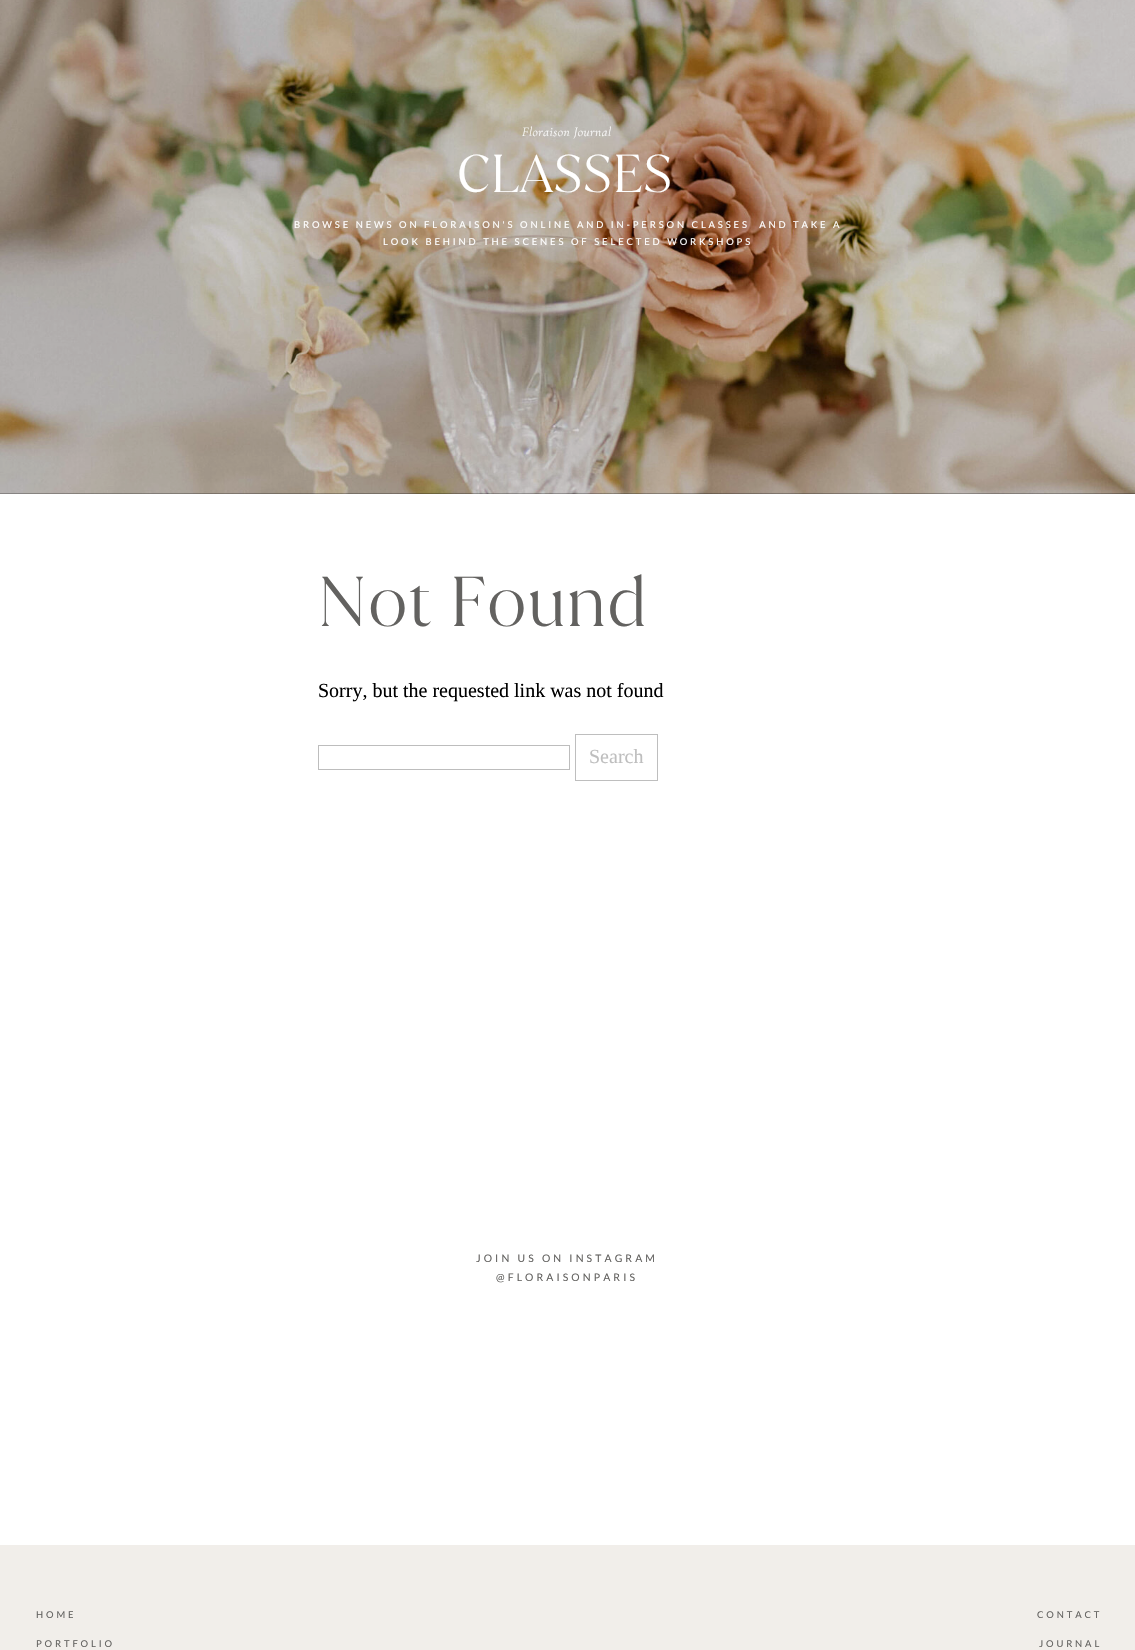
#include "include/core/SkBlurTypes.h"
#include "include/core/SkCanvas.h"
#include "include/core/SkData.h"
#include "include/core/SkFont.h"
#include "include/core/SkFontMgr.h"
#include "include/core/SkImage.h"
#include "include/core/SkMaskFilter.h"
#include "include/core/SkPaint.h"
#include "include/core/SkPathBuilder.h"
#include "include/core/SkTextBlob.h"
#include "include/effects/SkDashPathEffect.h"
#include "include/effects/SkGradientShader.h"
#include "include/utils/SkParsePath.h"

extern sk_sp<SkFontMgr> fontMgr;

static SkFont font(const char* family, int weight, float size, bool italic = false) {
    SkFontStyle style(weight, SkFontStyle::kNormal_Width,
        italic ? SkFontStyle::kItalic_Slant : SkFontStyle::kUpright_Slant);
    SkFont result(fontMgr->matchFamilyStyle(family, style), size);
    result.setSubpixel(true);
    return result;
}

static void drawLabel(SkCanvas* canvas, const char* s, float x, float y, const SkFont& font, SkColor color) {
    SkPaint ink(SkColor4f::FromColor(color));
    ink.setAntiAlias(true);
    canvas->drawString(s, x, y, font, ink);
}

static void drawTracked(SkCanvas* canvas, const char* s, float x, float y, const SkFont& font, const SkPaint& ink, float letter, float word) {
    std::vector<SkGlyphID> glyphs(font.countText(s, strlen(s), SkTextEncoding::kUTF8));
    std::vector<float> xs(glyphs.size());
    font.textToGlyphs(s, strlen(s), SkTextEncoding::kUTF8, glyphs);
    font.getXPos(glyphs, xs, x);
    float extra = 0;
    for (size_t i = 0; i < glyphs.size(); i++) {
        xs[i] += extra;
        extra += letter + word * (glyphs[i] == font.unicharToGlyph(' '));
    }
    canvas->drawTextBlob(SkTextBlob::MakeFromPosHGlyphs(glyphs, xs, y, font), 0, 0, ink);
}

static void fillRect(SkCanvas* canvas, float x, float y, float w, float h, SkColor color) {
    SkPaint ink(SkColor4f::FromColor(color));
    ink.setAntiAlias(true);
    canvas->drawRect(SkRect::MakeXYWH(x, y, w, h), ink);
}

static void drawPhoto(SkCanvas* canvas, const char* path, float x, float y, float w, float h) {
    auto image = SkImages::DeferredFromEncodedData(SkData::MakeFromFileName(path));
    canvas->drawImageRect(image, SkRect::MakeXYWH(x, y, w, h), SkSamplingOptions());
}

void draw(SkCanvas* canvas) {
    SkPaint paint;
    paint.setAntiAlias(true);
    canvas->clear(0xFFFFFFFF);
    fillRect(canvas, 0, 0, 1135, 494, 0xFF000000);
    drawPhoto(canvas, "assets/img1.png", 0, 0, 1135, 494);
    SkFont font1 = font("Cormorant Garamond", 300, 13.25f, true);
    paint.setColor(0xFFFFFFFF);
    drawTracked(canvas, "Floraison Journal", 522, 136, font1, paint, 0.5f, 0);
    SkFont font2 = font("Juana", 300, 51);
    drawTracked(canvas, "CLASSES", 457, 192, font2, paint, 1, 0);
    SkFont font3 = font("Lato", 400, 9.45f);
    drawTracked(canvas, "BROWSE NEWS ON FLORAISON'S ONLINE AND IN-PERSON CLASSES  AND TAKE A", 294, 228, font3, paint, 2.85f, 0);
    drawTracked(canvas, "LOOK BEHIND THE SCENES OF SELECTED WORKSHOPS", 383, 245, font3, paint, 2.85f, 0);
    SkFont font4 = font("Juana", 300, 67.5f);
    paint.setColor(0xFF636260);
    drawTracked(canvas, "Not Found", 318, 626, font4, paint, 1.25f, 0);
    SkFont font5 = font("Liberation Serif", 400, 20);
    drawLabel(canvas, "Sorry, but the requested link was not found", 318, 697, font5, 0xFF000000);
    paint.setStroke(true);
    paint.setStrokeWidth(1);
    paint.setColor(0xFFBDBDBD);
    canvas->drawRect(SkRect::MakeXYWH(318.5f, 745.5f, 251, 24), paint);
    paint.setColor(0xFFBEBEBE);
    canvas->drawRect(SkRect::MakeXYWH(575.5f, 734.5f, 82, 46), paint);
    drawLabel(canvas, "Search", 589, 763, font5, 0xFFBEBEBE);
    SkFont font6 = font("Lato", 400, 10.4f);
    paint.setStroke(false);
    paint.setColor(0xFF636260);
    drawTracked(canvas, "JOIN US ON INSTAGRAM", 476, 1262, font6, paint, 3.1f, 0);
    drawTracked(canvas, "@FLORAISONPARIS", 496, 1281, font6, paint, 3.1f, 0);
    fillRect(canvas, 0, 1545, 1135, 105, 0xFFF1EEEA);
    drawTracked(canvas, "HOME", 36, 1618, font3, paint, 2.85f, 0);
    drawTracked(canvas, "CONTACT", 1037, 1618, font3, paint, 2.85f, 0);
    drawTracked(canvas, "PORTFOLIO", 36, 1647, font3, paint, 2.85f, 0);
    drawTracked(canvas, "JOURNAL", 1039, 1647, font3, paint, 2.85f, 0);
}
